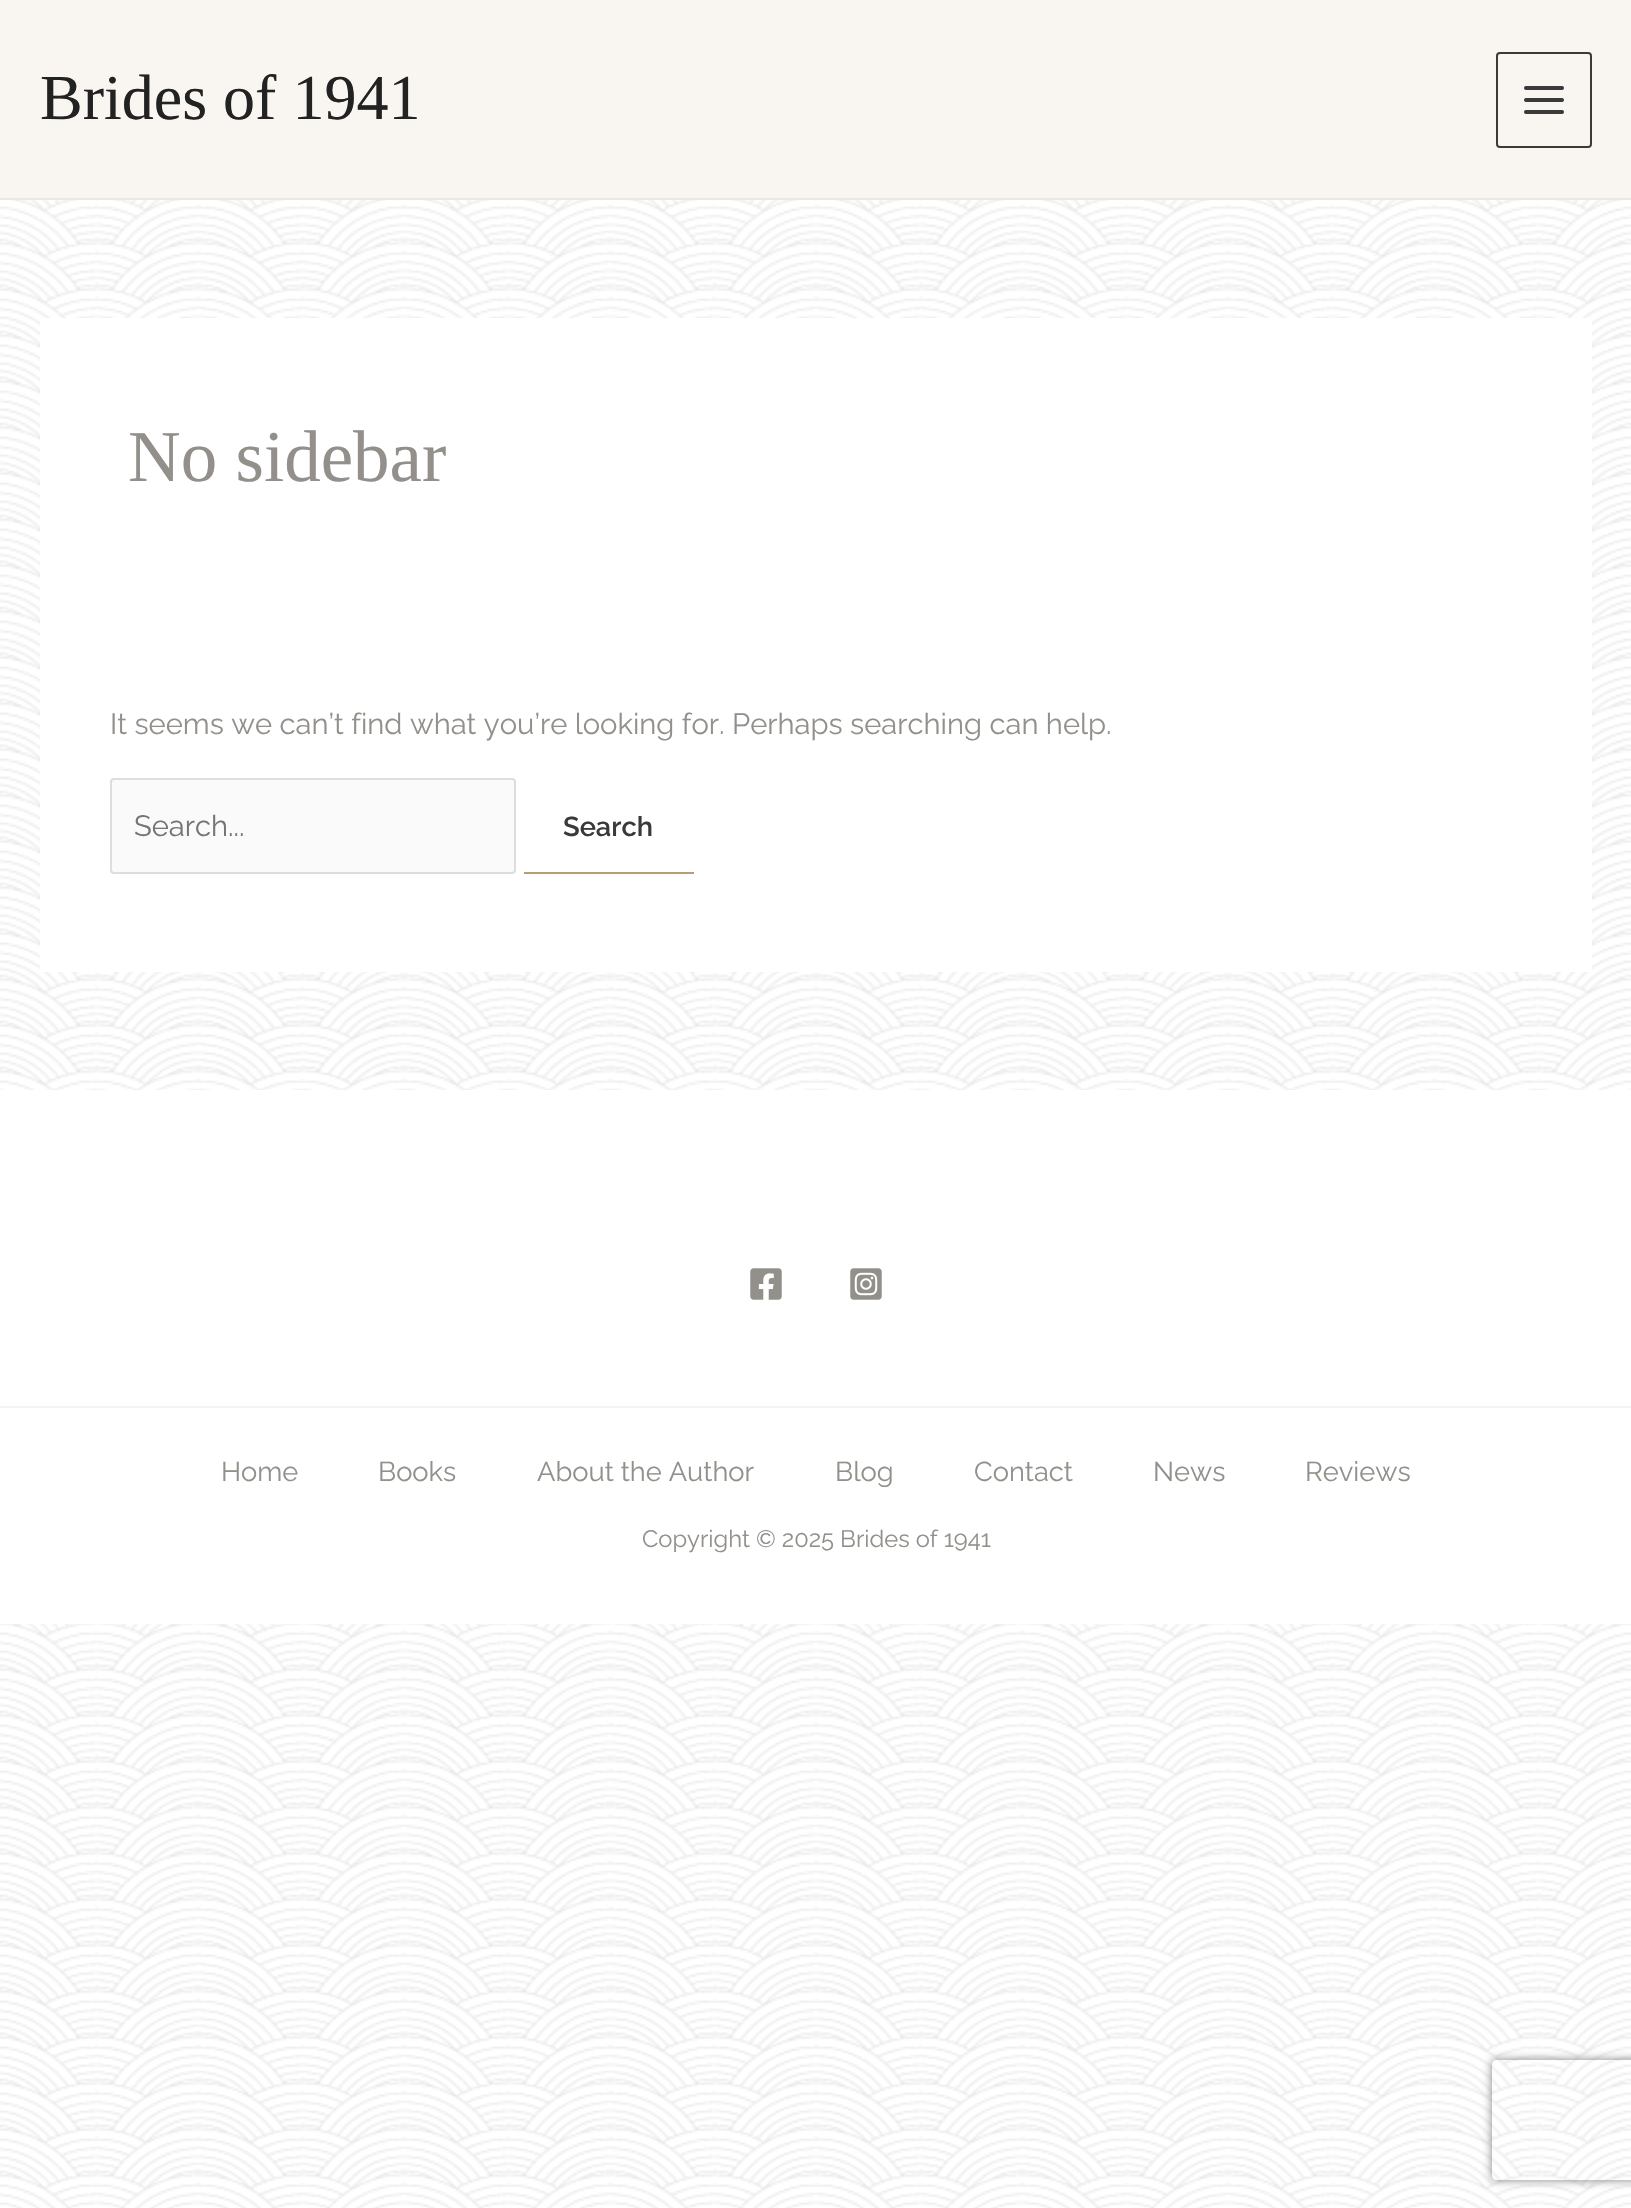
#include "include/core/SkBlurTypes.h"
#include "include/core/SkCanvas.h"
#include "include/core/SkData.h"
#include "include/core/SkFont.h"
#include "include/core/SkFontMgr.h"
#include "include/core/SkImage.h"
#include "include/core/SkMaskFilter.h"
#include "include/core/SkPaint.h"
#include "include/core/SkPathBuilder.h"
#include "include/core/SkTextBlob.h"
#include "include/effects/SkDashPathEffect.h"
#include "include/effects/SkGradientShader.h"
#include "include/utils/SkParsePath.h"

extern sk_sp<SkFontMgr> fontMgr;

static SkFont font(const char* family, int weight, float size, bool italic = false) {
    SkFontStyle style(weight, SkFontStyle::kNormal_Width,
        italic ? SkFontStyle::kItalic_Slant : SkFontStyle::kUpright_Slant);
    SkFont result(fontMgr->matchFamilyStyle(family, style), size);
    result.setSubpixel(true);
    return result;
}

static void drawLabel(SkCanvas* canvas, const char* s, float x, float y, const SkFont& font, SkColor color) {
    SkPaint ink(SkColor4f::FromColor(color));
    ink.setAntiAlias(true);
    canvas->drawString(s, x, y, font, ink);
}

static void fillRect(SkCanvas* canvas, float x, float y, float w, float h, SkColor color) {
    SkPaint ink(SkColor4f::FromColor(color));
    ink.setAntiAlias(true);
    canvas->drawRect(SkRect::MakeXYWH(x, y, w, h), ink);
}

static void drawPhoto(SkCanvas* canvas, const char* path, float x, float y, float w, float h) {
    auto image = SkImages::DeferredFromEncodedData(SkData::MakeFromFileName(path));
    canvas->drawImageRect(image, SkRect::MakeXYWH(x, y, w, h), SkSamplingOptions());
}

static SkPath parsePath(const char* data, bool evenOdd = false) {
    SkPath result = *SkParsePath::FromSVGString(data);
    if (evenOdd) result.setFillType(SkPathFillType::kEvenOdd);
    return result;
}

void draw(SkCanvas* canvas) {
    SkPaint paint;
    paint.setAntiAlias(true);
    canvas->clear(0xFFFFFFFF);
    drawPhoto(canvas, "assets/img1.png", 0, 200, 1631, 2008);
    fillRect(canvas, 0, 0, 1631, 198, 0xFFF9F6F1);
    fillRect(canvas, 0, 198, 1631, 2, 0xFFEDE7DD);
    SkFont font1 = font("Liberation Serif", 400, 64);
    drawLabel(canvas, "Brides of 1941", 40, 119, font1, 0xFF222222);
    paint.setStroke(true);
    paint.setStrokeWidth(2);
    paint.setColor(0xFF3A3A3A);
    canvas->drawRoundRect(SkRect::MakeXYWH(1497, 53, 94, 94), 3, 3, paint);
    drawPhoto(canvas, "assets/img2.png", 1524, 86, 40, 28);
    fillRect(canvas, 40, 318, 1552, 654, 0xFFFFFFFF);
    SkFont font2 = font("Liberation Serif", 400, 73);
    drawLabel(canvas, "No sidebar", 128, 481, font2, 0xFF93908B);
    SkFont font3 = font("Raleway", 400, 29.2f);
    drawLabel(canvas, "It seems we can’t find what you’re looking for. Perhaps searching can help.", 110, 734, font3, 0xFF93908B);
    paint.setStroke(false);
    paint.setColor(0xFFFAFAFA);
    canvas->drawRoundRect(SkRect::MakeXYWH(111, 779, 404, 94), 3, 3, paint);
    paint.setStroke(true);
    paint.setColor(0xFFDDDDDD);
    canvas->drawRoundRect(SkRect::MakeXYWH(111, 779, 404, 94), 3, 3, paint);
    drawLabel(canvas, "Search...", 134, 836, font3, 0xFF757575);
    fillRect(canvas, 524, 872, 170, 2, 0xFFB69D78);
    SkFont font4 = font("Raleway", 600, 27.25f);
    drawLabel(canvas, "Search", 563, 836, font4, 0xFF3A3A3A);
    fillRect(canvas, 0, 1090, 1631, 316, 0xFFFFFFFF);
    drawPhoto(canvas, "assets/img3.png", 750, 1268, 32, 32);
    drawPhoto(canvas, "assets/img4.png", 850, 1268, 32, 32);
    fillRect(canvas, 0, 1408, 1631, 216, 0xFFFFFFFF);
    fillRect(canvas, 0, 1406, 1631, 2, 0xFFF2F5F7);
    SkFont font5 = font("Raleway", 400, 27.25f);
    drawLabel(canvas, "Home", 221, 1481, font5, 0xFF93908B);
    drawLabel(canvas, "Books", 378, 1481, font5, 0xFF93908B);
    drawLabel(canvas, "About the Author", 537, 1481, font5, 0xFF93908B);
    drawLabel(canvas, "Blog", 835, 1481, font5, 0xFF93908B);
    drawLabel(canvas, "Contact", 974, 1481, font5, 0xFF93908B);
    drawLabel(canvas, "News", 1153, 1481, font5, 0xFF93908B);
    drawLabel(canvas, "Reviews", 1305, 1481, font5, 0xFF93908B);
    SkFont font6 = font("Raleway", 400, 23.75f);
    drawLabel(canvas, "Copyright © 2025 Brides of 1941", 642, 1547, font6, 0xFF93908B);
    canvas->save();
    canvas->clipPath(parsePath("M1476 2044H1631V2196H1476ZM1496 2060H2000C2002 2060 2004 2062 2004 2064V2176C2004 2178 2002 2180 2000 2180H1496C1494 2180 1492 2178 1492 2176V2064C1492 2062 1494 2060 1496 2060Z", true), true);
    paint.setStroke(false);
    paint.setColor(0xFF808080);
    paint.setMaskFilter(SkMaskFilter::MakeBlur(kNormal_SkBlurStyle, 5));
    canvas->drawRoundRect(SkRect::MakeXYWH(1492, 2060, 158, 120), 4, 4, paint);
    paint.setMaskFilter(nullptr);
    canvas->restore();
}
